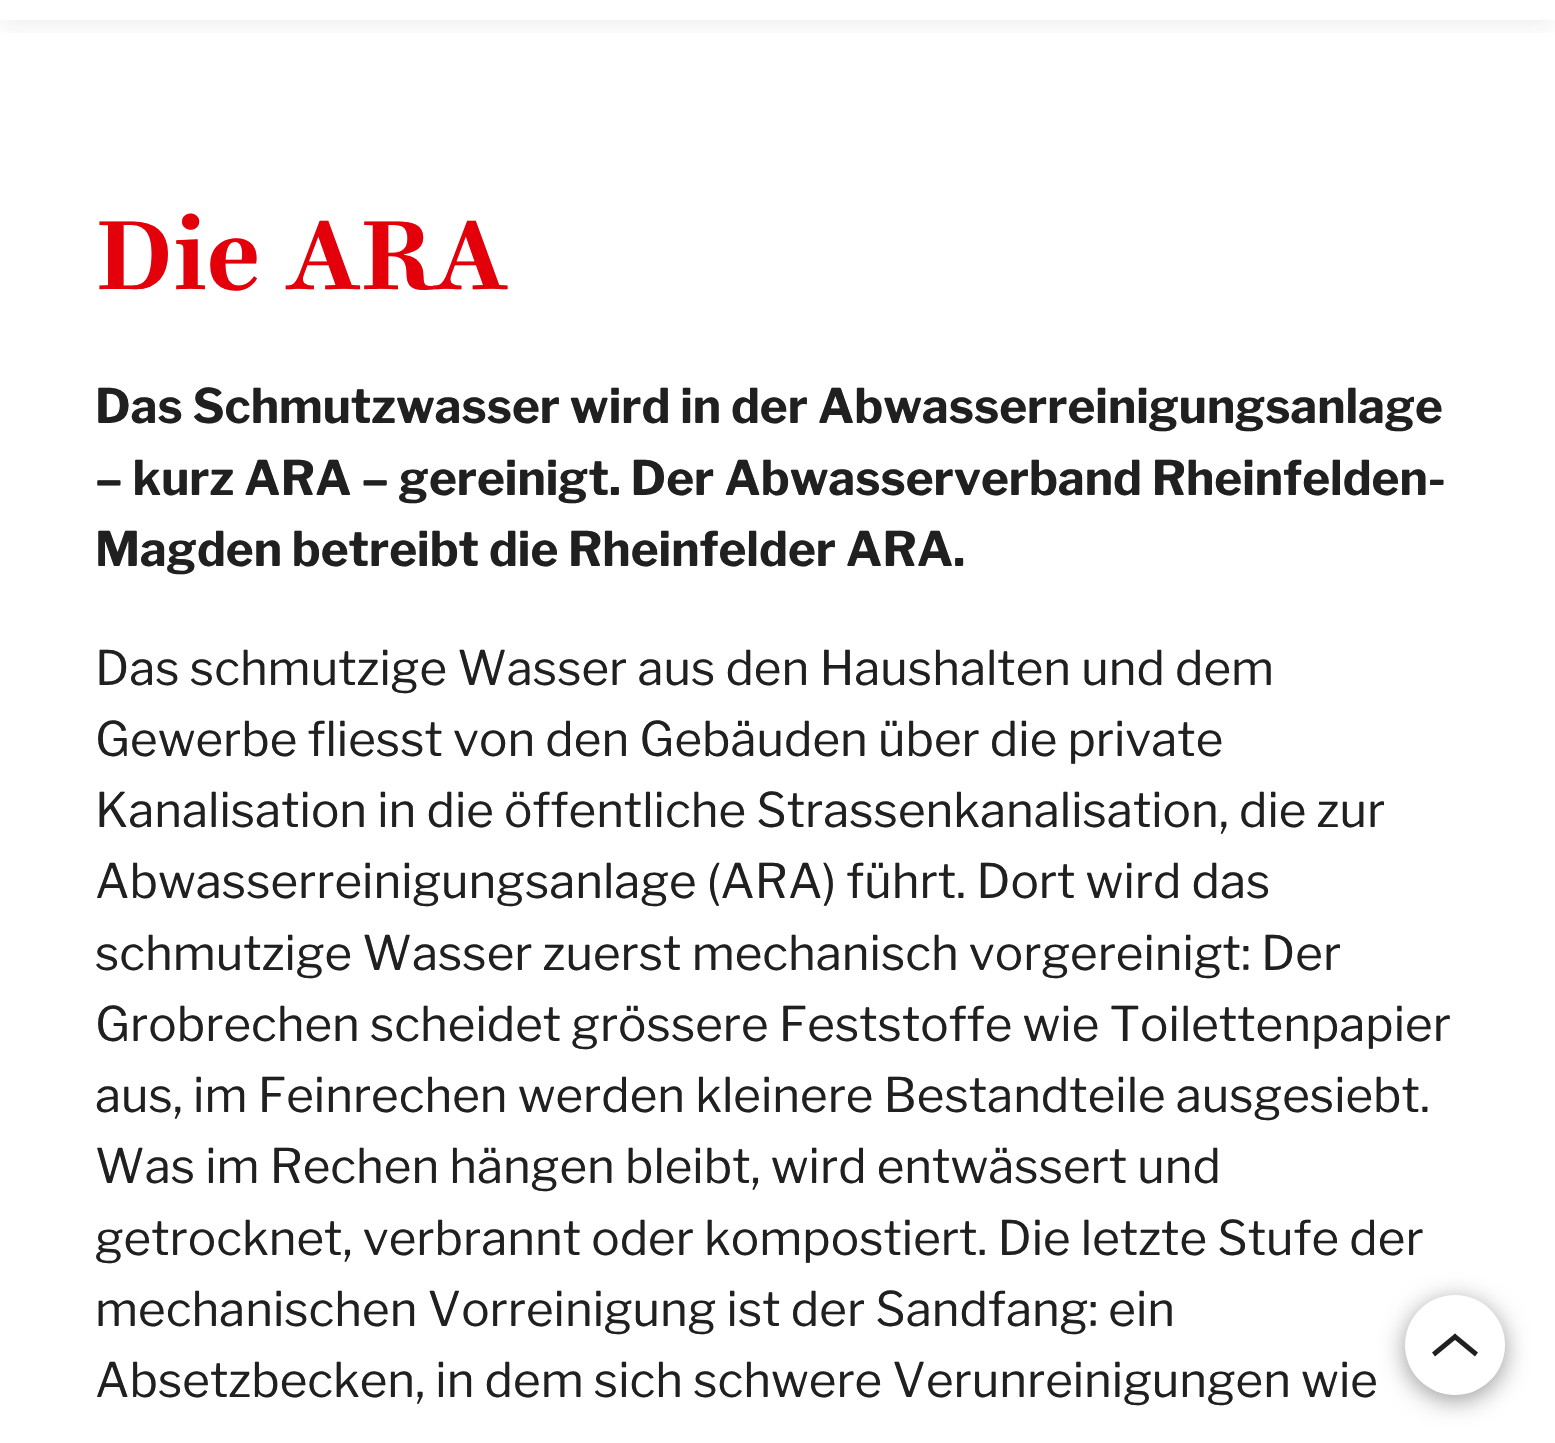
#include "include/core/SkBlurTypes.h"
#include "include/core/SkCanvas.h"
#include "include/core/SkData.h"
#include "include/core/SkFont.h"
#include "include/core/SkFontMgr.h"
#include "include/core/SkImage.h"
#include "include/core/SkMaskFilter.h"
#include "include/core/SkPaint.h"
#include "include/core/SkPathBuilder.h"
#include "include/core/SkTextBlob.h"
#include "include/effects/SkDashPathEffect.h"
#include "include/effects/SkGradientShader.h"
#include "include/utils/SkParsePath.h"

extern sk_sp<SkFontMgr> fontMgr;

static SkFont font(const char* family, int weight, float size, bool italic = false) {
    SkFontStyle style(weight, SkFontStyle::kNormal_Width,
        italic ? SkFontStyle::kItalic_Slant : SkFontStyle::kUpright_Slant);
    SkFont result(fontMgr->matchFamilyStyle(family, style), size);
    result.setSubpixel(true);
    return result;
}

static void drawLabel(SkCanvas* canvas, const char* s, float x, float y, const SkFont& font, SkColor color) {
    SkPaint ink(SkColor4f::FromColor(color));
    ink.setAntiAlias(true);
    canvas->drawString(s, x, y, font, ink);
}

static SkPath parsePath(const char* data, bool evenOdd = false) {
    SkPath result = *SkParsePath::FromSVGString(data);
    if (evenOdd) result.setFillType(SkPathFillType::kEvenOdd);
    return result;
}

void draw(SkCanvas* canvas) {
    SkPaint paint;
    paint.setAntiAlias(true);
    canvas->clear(0xFFFFFFFF);
    canvas->save();
    canvas->clipRect(SkRect::MakeXYWH(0, 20, 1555, 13));
    paint.setColor(0x14202020);
    paint.setMaskFilter(SkMaskFilter::MakeBlur(kNormal_SkBlurStyle, 12.5f));
    canvas->drawRect(SkRect::MakeXYWH(0, -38, 1555, 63), paint);
    paint.setMaskFilter(nullptr);
    canvas->restore();
    SkFont font1 = font("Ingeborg", 700, 107);
    drawLabel(canvas, "Die ARA", 95, 289, font1, 0xFFE3000B);
    SkFont font2 = font("Libre Franklin", 700, 47.5f);
    drawLabel(canvas, "Das Schmutzwasser wird in der Abwasserreinigungsanlage", 95, 423, font2, 0xFF202020);
    drawLabel(canvas, "– kurz ARA – gereinigt. Der Abwasserverband Rheinfelden-", 95, 495, font2, 0xFF202020);
    drawLabel(canvas, "Magden betreibt die Rheinfelder ARA.", 95, 566, font2, 0xFF202020);
    SkFont font3 = font("Libre Franklin", 400, 47.5f);
    drawLabel(canvas, "Das schmutzige Wasser aus den Haushalten und dem", 95, 685, font3, 0xFF202020);
    drawLabel(canvas, "Gewerbe fliesst von den Gebäuden über die private", 95, 756, font3, 0xFF202020);
    drawLabel(canvas, "Kanalisation in die öffentliche Strassenkanalisation, die zur", 95, 827, font3, 0xFF202020);
    drawLabel(canvas, "Abwasserreinigungsanlage (ARA) führt. Dort wird das", 95, 898, font3, 0xFF202020);
    drawLabel(canvas, "schmutzige Wasser zuerst mechanisch vorgereinigt: Der", 95, 970, font3, 0xFF202020);
    drawLabel(canvas, "Grobrechen scheidet grössere Feststoffe wie Toilettenpapier", 95, 1041, font3, 0xFF202020);
    drawLabel(canvas, "aus, im Feinrechen werden kleinere Bestandteile ausgesiebt.", 95, 1112, font3, 0xFF202020);
    drawLabel(canvas, "Was im Rechen hängen bleibt, wird entwässert und", 95, 1183, font3, 0xFF202020);
    drawLabel(canvas, "getrocknet, verbrannt oder kompostiert. Die letzte Stufe der", 95, 1255, font3, 0xFF202020);
    drawLabel(canvas, "mechanischen Vorreinigung ist der Sandfang: ein", 95, 1326, font3, 0xFF202020);
    drawLabel(canvas, "Absetzbecken, in dem sich schwere Verunreinigungen wie", 95, 1397, font3, 0xFF202020);
    paint.setColor(0x66000000);
    paint.setMaskFilter(SkMaskFilter::MakeBlur(kNormal_SkBlurStyle, 12.5f));
    canvas->drawRoundRect(SkRect::MakeXYWH(1405, 1300, 100, 100), 50, 50, paint);
    paint.setMaskFilter(nullptr);
    paint.setColor(0xFFFFFFFF);
    canvas->drawCircle(1455, 1345, 50, paint);
    paint.setColor(0xFF202020);
    canvas->drawPath(parsePath("M1432 1352.5L1455 1333.5L1458 1337.5L1435 1356.5Z"), paint);
    canvas->drawPath(parsePath("M1455 1333.5L1478 1352.5L1475 1356.5L1452 1337.5Z"), paint);
}
